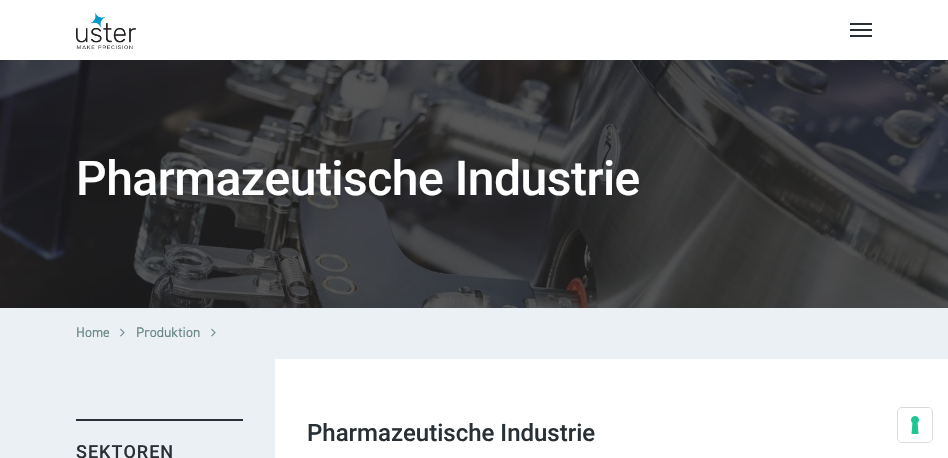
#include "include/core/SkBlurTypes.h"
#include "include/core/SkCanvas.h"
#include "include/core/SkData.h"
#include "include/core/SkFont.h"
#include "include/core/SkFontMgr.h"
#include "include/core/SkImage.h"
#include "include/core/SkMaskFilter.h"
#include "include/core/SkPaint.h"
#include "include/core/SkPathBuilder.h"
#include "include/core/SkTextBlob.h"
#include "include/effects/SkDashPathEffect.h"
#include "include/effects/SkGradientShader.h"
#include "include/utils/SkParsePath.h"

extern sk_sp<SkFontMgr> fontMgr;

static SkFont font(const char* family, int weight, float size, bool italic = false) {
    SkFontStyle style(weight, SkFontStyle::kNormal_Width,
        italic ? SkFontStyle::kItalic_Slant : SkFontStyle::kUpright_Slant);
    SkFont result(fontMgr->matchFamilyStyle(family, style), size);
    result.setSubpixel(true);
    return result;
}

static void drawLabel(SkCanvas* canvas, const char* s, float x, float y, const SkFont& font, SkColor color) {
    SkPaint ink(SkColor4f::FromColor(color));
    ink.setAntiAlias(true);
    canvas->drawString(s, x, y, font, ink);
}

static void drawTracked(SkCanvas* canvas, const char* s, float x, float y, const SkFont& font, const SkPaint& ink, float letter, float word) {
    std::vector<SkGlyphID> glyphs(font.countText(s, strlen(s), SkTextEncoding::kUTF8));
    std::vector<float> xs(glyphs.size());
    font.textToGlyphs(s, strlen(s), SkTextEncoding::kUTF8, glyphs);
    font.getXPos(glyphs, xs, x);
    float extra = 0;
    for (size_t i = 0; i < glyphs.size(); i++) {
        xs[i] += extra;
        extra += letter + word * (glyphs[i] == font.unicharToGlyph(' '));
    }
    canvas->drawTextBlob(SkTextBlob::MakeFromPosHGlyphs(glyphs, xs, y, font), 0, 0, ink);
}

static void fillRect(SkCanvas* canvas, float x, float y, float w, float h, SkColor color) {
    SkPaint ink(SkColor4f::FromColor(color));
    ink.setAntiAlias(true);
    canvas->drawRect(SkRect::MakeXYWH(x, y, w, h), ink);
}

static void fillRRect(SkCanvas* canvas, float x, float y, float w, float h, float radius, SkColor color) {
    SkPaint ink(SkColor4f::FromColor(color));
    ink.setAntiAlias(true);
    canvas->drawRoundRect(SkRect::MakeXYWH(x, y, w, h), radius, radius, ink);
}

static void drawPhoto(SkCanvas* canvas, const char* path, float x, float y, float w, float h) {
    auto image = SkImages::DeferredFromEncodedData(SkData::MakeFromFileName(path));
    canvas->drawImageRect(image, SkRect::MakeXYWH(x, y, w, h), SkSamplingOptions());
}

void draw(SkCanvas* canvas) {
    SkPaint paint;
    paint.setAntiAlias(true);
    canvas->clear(0xFFFFFFFF);
    drawPhoto(canvas, "assets/img1.png", 76, 11, 60, 38);
    fillRect(canvas, 850, 29, 22, 2, 0xFF283035);
    fillRect(canvas, 850, 23, 22, 2, 0xFF283035);
    fillRect(canvas, 850, 35, 22, 2, 0xFF283035);
    drawPhoto(canvas, "assets/img2.png", 0, 60, 948, 248);
    SkFont font1 = font("Roboto", 500, 48);
    paint.setColor(0xFFFFFFFF);
    drawTracked(canvas, "Pharmazeutische Industrie", 76, 195, font1, paint, -0.5f, 0);
    fillRect(canvas, 0, 308, 948, 51, 0xFFEBF0F5);
    SkFont font2 = font("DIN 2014", 400, 14);
    drawLabel(canvas, "Home", 76, 337, font2, 0xFF6A8985);
    drawPhoto(canvas, "assets/img3.png", 120, 328, 5, 9);
    drawLabel(canvas, "Produktion", 136, 337, font2, 0xFF6A8985);
    drawPhoto(canvas, "assets/img3.png", 211, 328, 5, 9);
    SkFont font3 = font("Roboto", 500, 24);
    drawLabel(canvas, "Pharmazeutische Industrie", 307, 441, font3, 0xFF283035);
    fillRect(canvas, 0, 359, 275, 99, 0xFFEBF0F5);
    fillRect(canvas, 76, 419, 167, 2, 0xFF283035);
    SkFont font4 = font("Roboto", 500, 18);
    paint.setColor(0xFF283035);
    drawTracked(canvas, "SEKTOREN", 76, 458, font4, paint, 1, 0);
    paint.setStroke(true);
    paint.setStrokeWidth(1);
    paint.setColor(0xFFD9D9D9);
    canvas->drawRoundRect(SkRect::MakeXYWH(897.5f, 407.5f, 35, 35), 4.5f, 4.5f, paint);
    fillRRect(canvas, 898, 408, 34, 34, 4, 0xFFFFFFFF);
    drawPhoto(canvas, "assets/img4.png", 911, 416, 8, 18);
}
